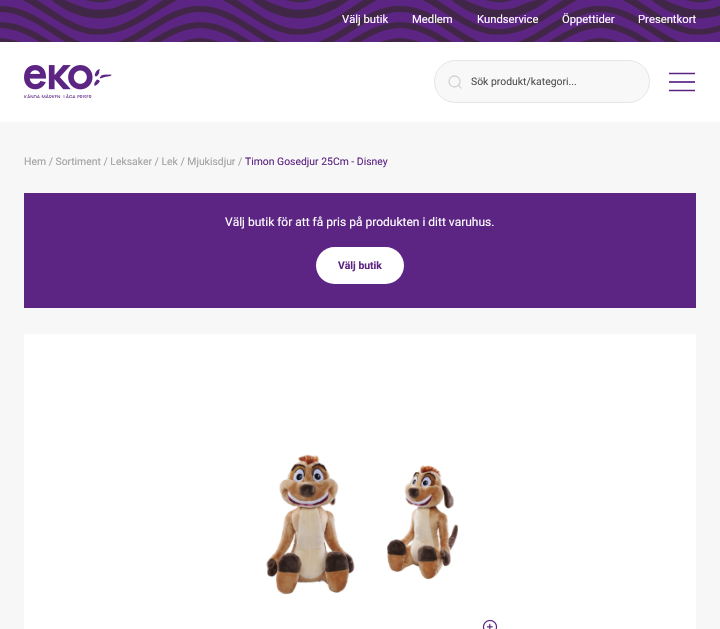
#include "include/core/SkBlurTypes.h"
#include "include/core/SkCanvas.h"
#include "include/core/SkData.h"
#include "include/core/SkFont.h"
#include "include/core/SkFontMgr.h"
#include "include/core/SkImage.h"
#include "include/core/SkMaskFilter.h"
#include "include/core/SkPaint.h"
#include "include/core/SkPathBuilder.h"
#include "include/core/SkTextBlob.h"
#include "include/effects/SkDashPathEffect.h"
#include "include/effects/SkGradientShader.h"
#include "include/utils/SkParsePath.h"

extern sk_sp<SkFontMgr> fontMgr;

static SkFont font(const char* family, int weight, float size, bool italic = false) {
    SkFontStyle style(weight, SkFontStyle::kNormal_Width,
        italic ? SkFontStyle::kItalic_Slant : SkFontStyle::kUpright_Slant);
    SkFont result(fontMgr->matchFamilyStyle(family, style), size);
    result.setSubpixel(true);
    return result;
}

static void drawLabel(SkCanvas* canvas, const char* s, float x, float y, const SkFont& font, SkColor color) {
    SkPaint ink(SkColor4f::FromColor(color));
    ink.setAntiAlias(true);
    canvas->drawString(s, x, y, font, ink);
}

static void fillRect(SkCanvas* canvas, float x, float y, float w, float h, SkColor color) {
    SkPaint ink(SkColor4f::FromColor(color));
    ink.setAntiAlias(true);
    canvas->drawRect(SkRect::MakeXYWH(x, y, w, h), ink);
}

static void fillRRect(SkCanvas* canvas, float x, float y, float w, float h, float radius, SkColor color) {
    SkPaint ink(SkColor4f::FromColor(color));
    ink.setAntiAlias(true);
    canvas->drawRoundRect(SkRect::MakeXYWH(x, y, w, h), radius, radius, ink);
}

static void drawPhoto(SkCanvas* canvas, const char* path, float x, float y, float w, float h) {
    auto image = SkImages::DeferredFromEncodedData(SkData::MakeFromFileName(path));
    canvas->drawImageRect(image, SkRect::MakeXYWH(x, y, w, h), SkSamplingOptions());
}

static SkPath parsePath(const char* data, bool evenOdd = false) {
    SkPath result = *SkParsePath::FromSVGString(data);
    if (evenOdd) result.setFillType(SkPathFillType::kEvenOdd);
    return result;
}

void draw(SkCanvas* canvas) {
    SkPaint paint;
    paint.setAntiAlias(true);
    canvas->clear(0xFFF7F7F7);
    fillRect(canvas, 0, 0, 720, 42, 0xFF5C2483);
    drawPhoto(canvas, "assets/img1.png", 0, 0, 720, 42);
    SkFont font1 = font("Roboto", 400, 11.25f);
    drawLabel(canvas, "Välj butik", 342, 23, font1, 0xFFFFFFFF);
    drawLabel(canvas, "Medlem", 412, 23, font1, 0xFFFFFFFF);
    drawLabel(canvas, "Kundservice", 477, 23, font1, 0xFFFFFFFF);
    drawLabel(canvas, "Öppettider", 562, 23, font1, 0xFFFFFFFF);
    drawLabel(canvas, "Presentkort", 638, 23, font1, 0xFFFFFFFF);
    fillRect(canvas, 0, 42, 720, 80, 0xFFFFFFFF);
    drawPhoto(canvas, "assets/img2.png", 24, 65, 88, 33);
    paint.setColor(0xFFF8F8F8);
    canvas->drawRoundRect(SkRect::MakeXYWH(434.5f, 60.5f, 215, 42), 21, 21, paint);
    paint.setStroke(true);
    paint.setStrokeWidth(1);
    paint.setColor(0xFFE5E5E5);
    canvas->drawRoundRect(SkRect::MakeXYWH(434.5f, 60.5f, 215, 42), 21, 21, paint);
    paint.setStrokeWidth(1.3f);
    paint.setColor(0xFFD2D2D2);
    canvas->drawCircle(454.5f, 81.5f, 5.5f, paint);
    paint.setStrokeCap(SkPaint::kRound_Cap);
    paint.setStrokeJoin(SkPaint::kRound_Join);
    canvas->drawPath(parsePath("M461 88L458 85"), paint);
    SkFont font2 = font("Roboto", 400, 10.4f);
    drawLabel(canvas, "Sök produkt/kategori...", 471, 85, font2, 0xFF525252);
    fillRect(canvas, 669, 81, 26, 2, 0xFF744596);
    paint.setStrokeWidth(1.7f);
    paint.setStrokeCap(SkPaint::kButt_Cap);
    paint.setColor(0xFF5C2483);
    canvas->drawPath(parsePath("M669 73.5H695M669 90.5H695"), paint);
    drawLabel(canvas, "Hem / Sortiment / Leksaker / Lek / Mjukisdjur /", 24, 165, font2, 0xFFA2A2A2);
    drawLabel(canvas, "Timon Gosedjur 25Cm - Disney", 245, 165, font2, 0xFF5C2483);
    fillRect(canvas, 24, 193, 672, 115, 0xFF5C2483);
    SkFont font3 = font("Roboto", 400, 12);
    drawLabel(canvas, "Välj butik för att få pris på produkten i ditt varuhus.", 225, 226, font3, 0xFFFFFFFF);
    fillRRect(canvas, 316, 247, 88, 37, 18.5f, 0xFFFFFFFF);
    SkFont font4 = font("Roboto", 700, 10.4f);
    drawLabel(canvas, "Välj butik", 338, 269, font4, 0xFF5C2483);
    fillRect(canvas, 24, 334, 672, 295, 0xFFFFFFFF);
    drawPhoto(canvas, "assets/img3.png", 266, 454, 192, 141);
    drawPhoto(canvas, "assets/img4.png", 482, 619, 16, 10);
}
